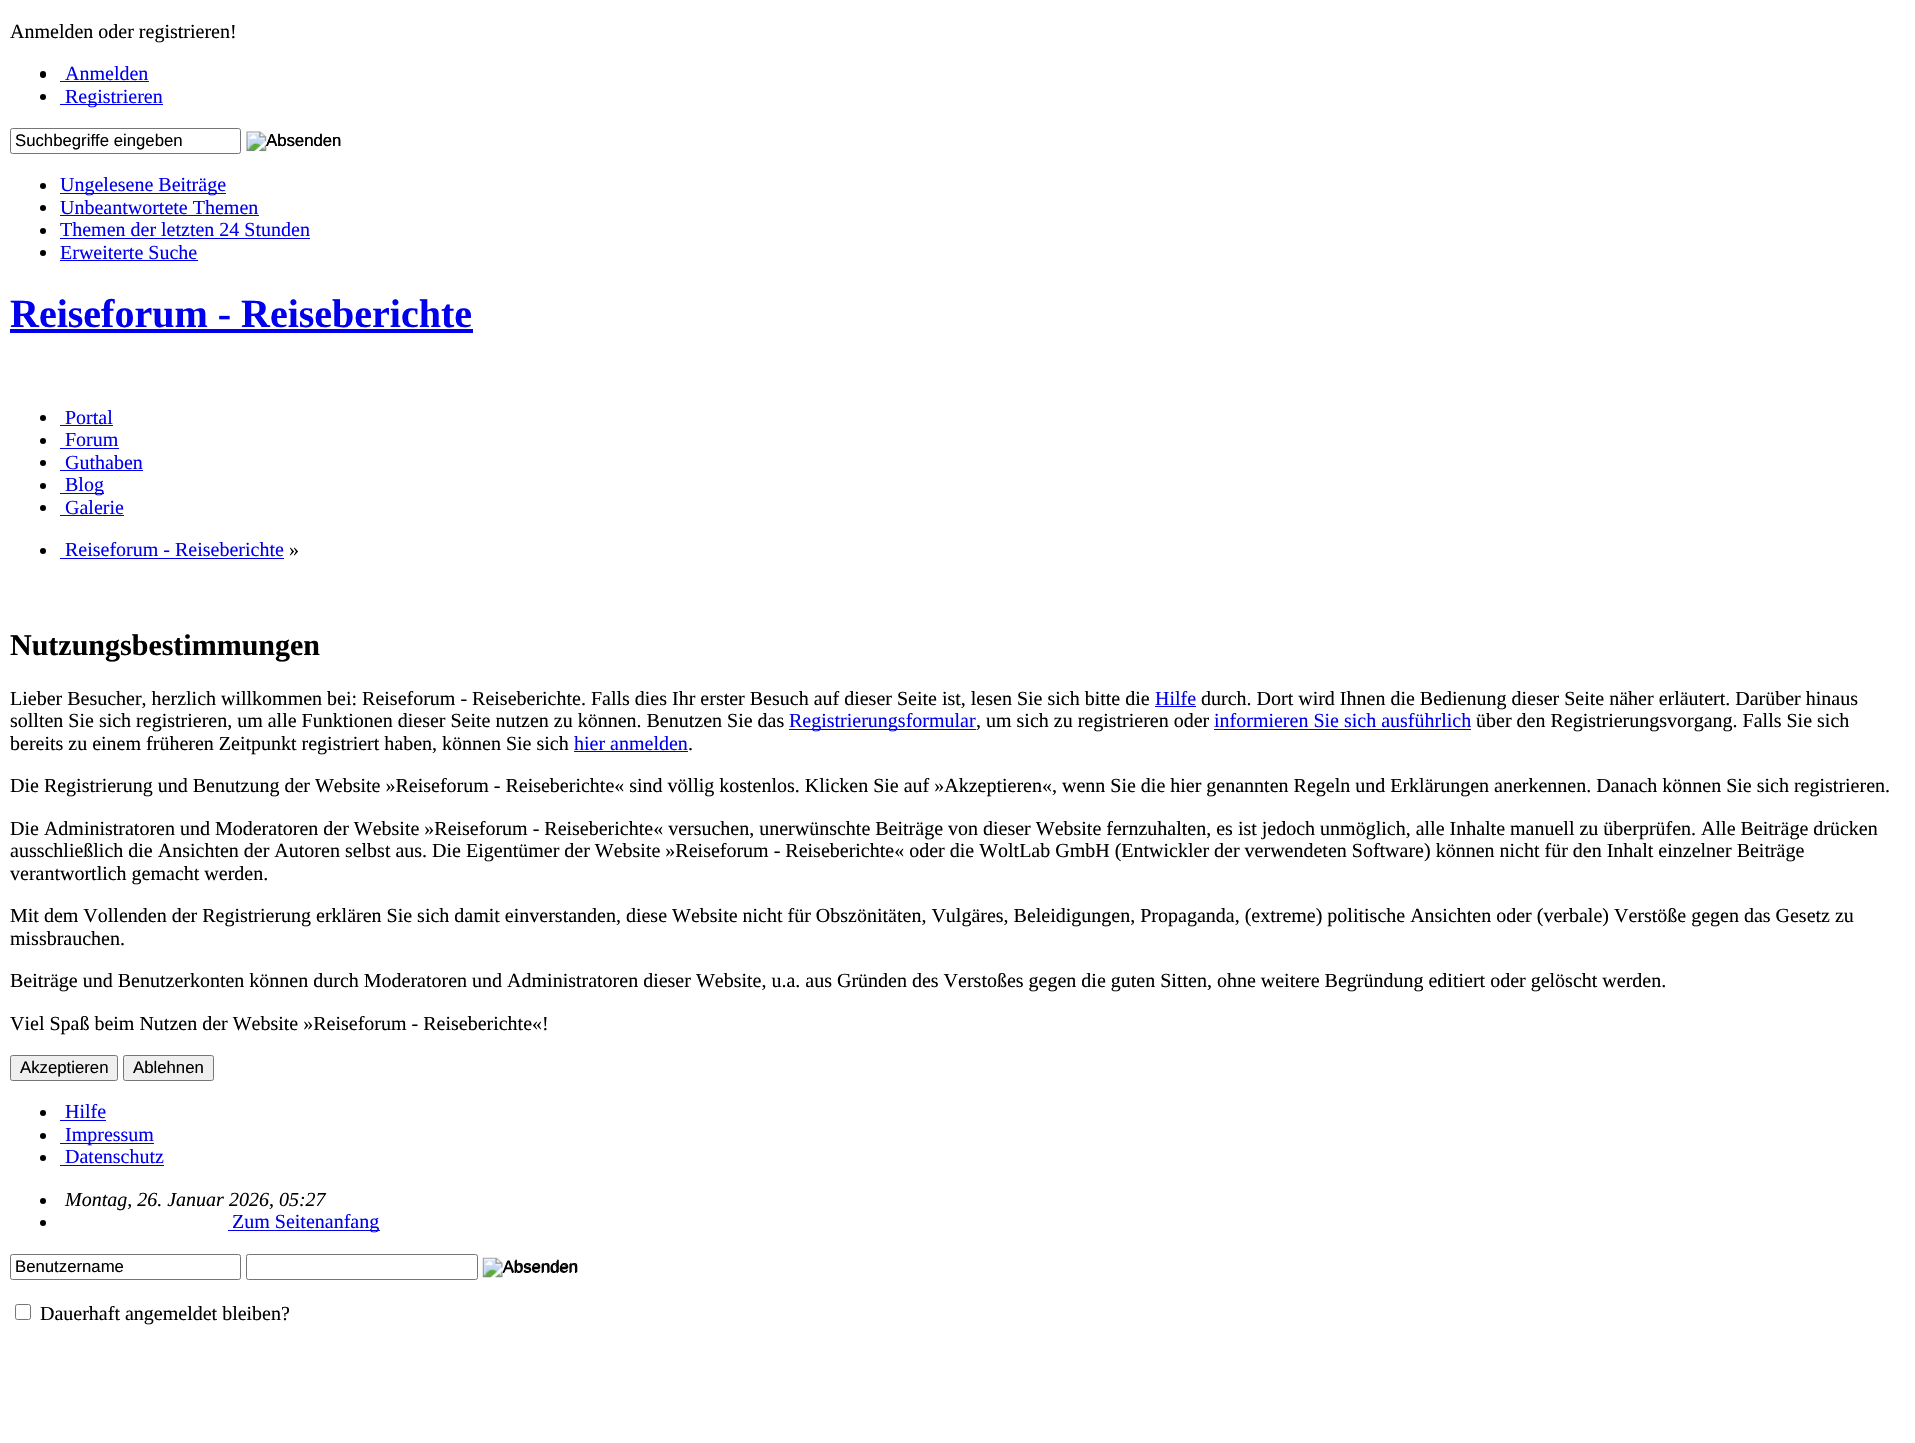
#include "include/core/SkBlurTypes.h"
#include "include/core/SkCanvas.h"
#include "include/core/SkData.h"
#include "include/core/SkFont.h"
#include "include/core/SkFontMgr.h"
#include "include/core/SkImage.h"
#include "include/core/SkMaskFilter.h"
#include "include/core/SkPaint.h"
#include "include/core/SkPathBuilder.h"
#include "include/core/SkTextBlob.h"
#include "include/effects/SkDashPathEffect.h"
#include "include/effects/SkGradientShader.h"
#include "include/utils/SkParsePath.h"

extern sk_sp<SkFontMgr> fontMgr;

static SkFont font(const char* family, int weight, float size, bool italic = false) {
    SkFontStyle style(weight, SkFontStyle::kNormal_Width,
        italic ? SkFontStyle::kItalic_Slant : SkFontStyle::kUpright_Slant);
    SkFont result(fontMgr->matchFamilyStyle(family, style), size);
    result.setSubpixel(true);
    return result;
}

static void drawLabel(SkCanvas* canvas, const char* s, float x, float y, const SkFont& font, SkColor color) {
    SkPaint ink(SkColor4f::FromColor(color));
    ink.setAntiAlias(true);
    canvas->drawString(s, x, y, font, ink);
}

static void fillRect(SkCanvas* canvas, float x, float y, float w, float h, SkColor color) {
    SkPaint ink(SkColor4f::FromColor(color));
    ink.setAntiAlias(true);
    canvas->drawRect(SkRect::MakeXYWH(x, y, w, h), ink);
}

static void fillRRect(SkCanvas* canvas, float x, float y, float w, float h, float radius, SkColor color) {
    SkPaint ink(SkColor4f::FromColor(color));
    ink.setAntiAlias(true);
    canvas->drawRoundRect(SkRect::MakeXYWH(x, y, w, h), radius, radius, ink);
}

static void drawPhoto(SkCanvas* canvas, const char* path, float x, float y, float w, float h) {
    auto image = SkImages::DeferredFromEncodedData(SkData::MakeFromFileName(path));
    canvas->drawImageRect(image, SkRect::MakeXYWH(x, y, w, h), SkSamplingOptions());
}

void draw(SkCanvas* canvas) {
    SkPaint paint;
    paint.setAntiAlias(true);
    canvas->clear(0xFFFFFFFF);
    SkFont font1 = font("Liberation Serif", 400, 20);
    drawLabel(canvas, "Anmelden oder registrieren!", 10, 38, font1, 0xFF000000);
    fillRRect(canvas, 40, 71, 6, 7, 3, 0xFF000000);
    drawLabel(canvas, "Anmelden", 65, 80, font1, 0xFF0000EE);
    fillRect(canvas, 60, 81, 89, 1, 0xFF0000EE);
    paint.setColor(0xFF000000);
    canvas->drawCircle(43, 97, 3, paint);
    fillRect(canvas, 60, 104, 103, 1, 0xFF0000EE);
    drawLabel(canvas, "Registrieren", 65, 103, font1, 0xFF0000EE);
    paint.setStroke(true);
    paint.setStrokeWidth(1);
    paint.setColor(0xFF767676);
    canvas->drawRoundRect(SkRect::MakeXYWH(10.5f, 128.5f, 230, 25), 2, 2, paint);
    SkFont font2 = font("Liberation Sans", 400, 16.75f);
    drawLabel(canvas, "Suchbegriffe eingeben", 15, 146, font2, 0xFF000000);
    drawPhoto(canvas, "assets/img1.png", 246, 131, 95, 21);
    drawLabel(canvas, "Absenden", 266, 146, font2, 0xFF000000);
    paint.setStroke(false);
    paint.setColor(0xFF000000);
    canvas->drawCircle(43, 186, 3, paint);
    fillRect(canvas, 60, 193, 166, 1, 0xFF0000EE);
    drawLabel(canvas, "Ungelesene Beiträge", 60, 191, font1, 0xFF0000EE);
    canvas->drawCircle(43, 208, 3, paint);
    drawLabel(canvas, "Unbeantwortete Themen", 60, 214, font1, 0xFF0000EE);
    fillRect(canvas, 60, 215, 199, 1, 0xFF0000EE);
    canvas->drawCircle(43, 231, 3, paint);
    drawLabel(canvas, "Themen der letzten 24 Stunden", 60, 236, font1, 0xFF0000EE);
    fillRect(canvas, 60, 238, 250, 1, 0xFF0000EE);
    canvas->drawCircle(43, 253, 3, paint);
    drawLabel(canvas, "Erweiterte Suche", 60, 259, font1, 0xFF0000EE);
    fillRect(canvas, 60, 260, 138, 1, 0xFF0000EE);
    SkFont font3 = font("Liberation Serif", 700, 40);
    drawLabel(canvas, "Reiseforum - Reiseberichte", 10, 327, font3, 0xFF0000EE);
    fillRect(canvas, 10, 329, 463, 4, 0xFF0000EE);
    canvas->drawCircle(43, 418, 3, paint);
    drawLabel(canvas, "Portal", 65, 424, font1, 0xFF0000EE);
    fillRect(canvas, 60, 425, 53, 1, 0xFF0000EE);
    canvas->drawCircle(43, 441, 3, paint);
    drawLabel(canvas, "Forum", 65, 446, font1, 0xFF0000EE);
    fillRect(canvas, 60, 448, 59, 1, 0xFF0000EE);
    canvas->drawCircle(43, 463, 3, paint);
    drawLabel(canvas, "Guthaben", 65, 469, font1, 0xFF0000EE);
    fillRect(canvas, 60, 470, 83, 1, 0xFF0000EE);
    canvas->drawCircle(43, 486, 3, paint);
    fillRect(canvas, 60, 493, 44, 1, 0xFF0000EE);
    drawLabel(canvas, "Blog", 65, 491, font1, 0xFF0000EE);
    canvas->drawCircle(43, 508, 3, paint);
    drawLabel(canvas, "Galerie", 65, 514, font1, 0xFF0000EE);
    fillRect(canvas, 60, 515, 64, 1, 0xFF0000EE);
    canvas->drawCircle(43, 551, 3, paint);
    drawLabel(canvas, "Reiseforum - Reiseberichte", 65, 556, font1, 0xFF0000EE);
    fillRect(canvas, 60, 558, 224, 1, 0xFF0000EE);
    drawLabel(canvas, "»", 289, 556, font1, 0xFF000000);
    SkFont font4 = font("Liberation Serif", 700, 30);
    drawLabel(canvas, "Nutzungsbestimmungen", 10, 655, font4, 0xFF000000);
    drawLabel(canvas, "Lieber Besucher, herzlich willkommen bei: Reiseforum - Reiseberichte. Falls dies Ihr erster Besuch auf dieser Seite ist, lesen Sie sich bitte die", 10, 705, font1, 0xFF000000);
    drawLabel(canvas, "Hilfe", 1155, 705, font1, 0xFF0000EE);
    fillRect(canvas, 1155, 706, 41, 1, 0xFF0000EE);
    drawLabel(canvas, "durch. Dort wird Ihnen die Bedienung dieser Seite näher erläutert. Darüber hinaus", 1201, 705, font1, 0xFF000000);
    drawLabel(canvas, "sollten Sie sich registrieren, um alle Funktionen dieser Seite nutzen zu können. Benutzen Sie das", 10, 727, font1, 0xFF000000);
    fillRect(canvas, 789, 729, 187, 1, 0xFF0000EE);
    drawLabel(canvas, "Registrierungsformular", 789, 727, font1, 0xFF0000EE);
    drawLabel(canvas, ", um sich zu registrieren oder", 976, 727, font1, 0xFF000000);
    drawLabel(canvas, "informieren Sie sich ausführlich", 1214, 727, font1, 0xFF0000EE);
    fillRect(canvas, 1214, 729, 257, 1, 0xFF0000EE);
    drawLabel(canvas, "über den Registrierungsvorgang. Falls Sie sich", 1476, 727, font1, 0xFF000000);
    drawLabel(canvas, "bereits zu einem früheren Zeitpunkt registriert haben, können Sie sich", 10, 750, font1, 0xFF000000);
    drawLabel(canvas, "hier anmelden", 574, 750, font1, 0xFF0000EE);
    fillRect(canvas, 574, 751, 114, 1, 0xFF0000EE);
    drawLabel(canvas, ".", 688, 750, font1, 0xFF000000);
    drawLabel(canvas, "Die Registrierung und Benutzung der Website »Reiseforum - Reiseberichte« sind völlig kostenlos. Klicken Sie auf »Akzeptieren«, wenn Sie die hier genannten Regeln und Erklärungen anerkennen. Danach können Sie sich registrieren.", 10, 792, font1, 0xFF000000);
    drawLabel(canvas, "Die Administratoren und Moderatoren der Website »Reiseforum - Reiseberichte« versuchen, unerwünschte Beiträge von dieser Website fernzuhalten, es ist jedoch unmöglich, alle Inhalte manuell zu überprüfen. Alle Beiträge drücken", 10, 835, font1, 0xFF000000);
    drawLabel(canvas, "ausschließlich die Ansichten der Autoren selbst aus. Die Eigentümer der Website »Reiseforum - Reiseberichte« oder die WoltLab GmbH (Entwickler der verwendeten Software) können nicht für den Inhalt einzelner Beiträge", 10, 857, font1, 0xFF000000);
    drawLabel(canvas, "verantwortlich gemacht werden.", 10, 880, font1, 0xFF000000);
    drawLabel(canvas, "Mit dem Vollenden der Registrierung erklären Sie sich damit einverstanden, diese Website nicht für Obszönitäten, Vulgäres, Beleidigungen, Propaganda, (extreme) politische Ansichten oder (verbale) Verstöße gegen das Gesetz zu", 10, 922, font1, 0xFF000000);
    drawLabel(canvas, "missbrauchen.", 10, 945, font1, 0xFF000000);
    drawLabel(canvas, "Beiträge und Benutzerkonten können durch Moderatoren und Administratoren dieser Website, u.a. aus Gründen des Verstoßes gegen die guten Sitten, ohne weitere Begründung editiert oder gelöscht werden.", 10, 987, font1, 0xFF000000);
    drawLabel(canvas, "Viel Spaß beim Nutzen der Website »Reiseforum - Reiseberichte«!", 10, 1030, font1, 0xFF000000);
    paint.setColor(0xFFEFEFEF);
    canvas->drawRoundRect(SkRect::MakeXYWH(10.5f, 1055.5f, 107, 25), 2, 2, paint);
    paint.setStroke(true);
    paint.setColor(0xFF767676);
    canvas->drawRoundRect(SkRect::MakeXYWH(10.5f, 1055.5f, 107, 25), 2, 2, paint);
    drawLabel(canvas, "Akzeptieren", 20, 1073, font2, 0xFF000000);
    paint.setStroke(false);
    paint.setColor(0xFFEFEFEF);
    canvas->drawRoundRect(SkRect::MakeXYWH(123.5f, 1055.5f, 90, 25), 2, 2, paint);
    paint.setStroke(true);
    paint.setColor(0xFF767676);
    canvas->drawRoundRect(SkRect::MakeXYWH(123.5f, 1055.5f, 90, 25), 2, 2, paint);
    drawLabel(canvas, "Ablehnen", 133, 1073, font2, 0xFF000000);
    paint.setStroke(false);
    paint.setColor(0xFF000000);
    canvas->drawCircle(43, 1113, 3, paint);
    drawLabel(canvas, "Hilfe", 65, 1118, font1, 0xFF0000EE);
    fillRect(canvas, 60, 1120, 46, 1, 0xFF0000EE);
    canvas->drawCircle(43, 1136, 3, paint);
    fillRect(canvas, 60, 1143, 94, 1, 0xFF0000EE);
    drawLabel(canvas, "Impressum", 65, 1141, font1, 0xFF0000EE);
    canvas->drawCircle(43, 1158, 3, paint);
    drawLabel(canvas, "Datenschutz", 65, 1163, font1, 0xFF0000EE);
    fillRect(canvas, 60, 1165, 104, 1, 0xFF0000EE);
    canvas->drawCircle(43, 1201, 3, paint);
    SkFont font5 = font("Liberation Serif", 400, 20, true);
    drawLabel(canvas, "Montag, 26. Januar 2026, 05:27", 65, 1206, font5, 0xFF000000);
    canvas->drawCircle(43, 1223, 3, paint);
    fillRect(canvas, 228, 1230, 152, 1, 0xFF0000EE);
    drawLabel(canvas, "Zum Seitenanfang", 232, 1228, font1, 0xFF0000EE);
    paint.setStroke(true);
    paint.setColor(0xFF767676);
    canvas->drawRoundRect(SkRect::MakeXYWH(10.5f, 1254.5f, 230, 25), 2, 2, paint);
    drawLabel(canvas, "Benutzername", 15, 1272, font2, 0xFF000000);
    canvas->drawRoundRect(SkRect::MakeXYWH(246.5f, 1254.5f, 231, 25), 2, 2, paint);
    drawPhoto(canvas, "assets/img2.png", 482, 1257, 95, 21);
    drawLabel(canvas, "Absenden", 503, 1272, font2, 0xFF000000);
    canvas->drawRoundRect(SkRect::MakeXYWH(15.5f, 1304.5f, 15, 15), 2, 2, paint);
    drawLabel(canvas, "Dauerhaft angemeldet bleiben?", 40, 1320, font1, 0xFF000000);
}
